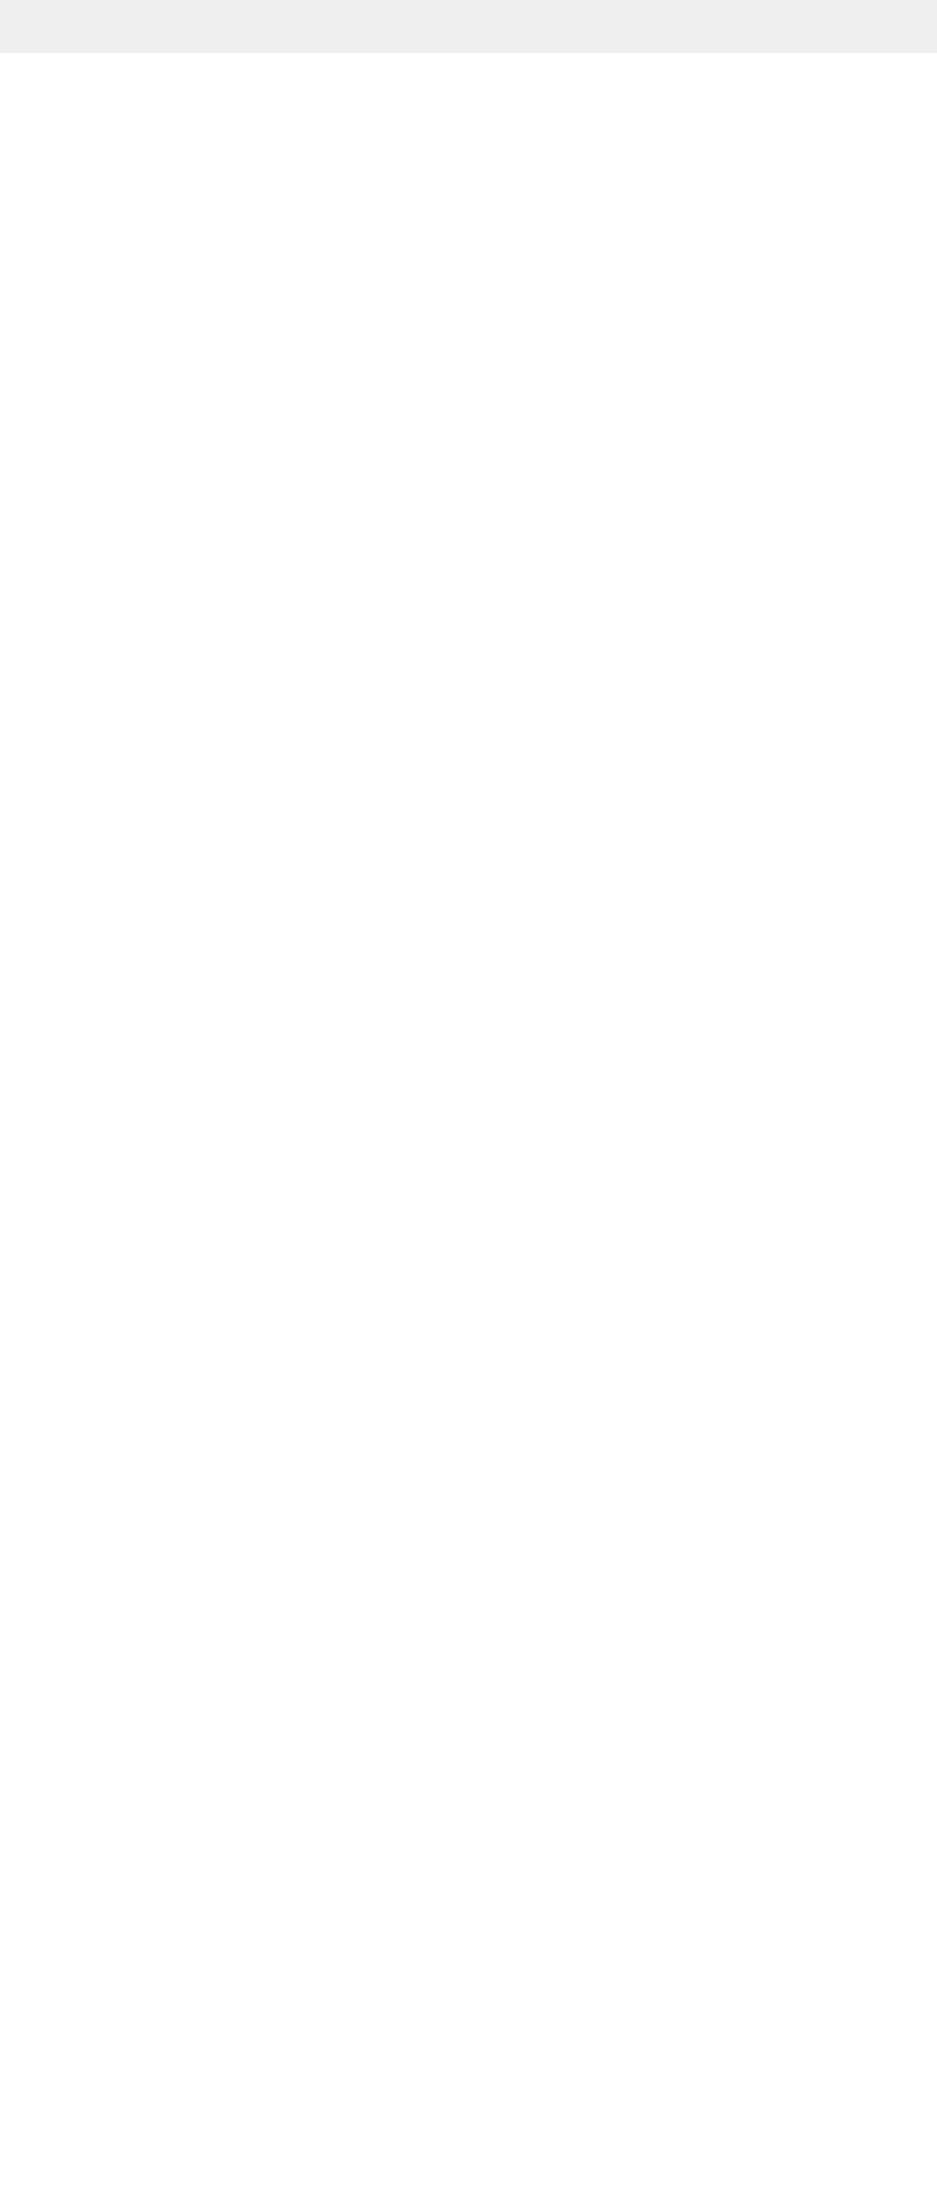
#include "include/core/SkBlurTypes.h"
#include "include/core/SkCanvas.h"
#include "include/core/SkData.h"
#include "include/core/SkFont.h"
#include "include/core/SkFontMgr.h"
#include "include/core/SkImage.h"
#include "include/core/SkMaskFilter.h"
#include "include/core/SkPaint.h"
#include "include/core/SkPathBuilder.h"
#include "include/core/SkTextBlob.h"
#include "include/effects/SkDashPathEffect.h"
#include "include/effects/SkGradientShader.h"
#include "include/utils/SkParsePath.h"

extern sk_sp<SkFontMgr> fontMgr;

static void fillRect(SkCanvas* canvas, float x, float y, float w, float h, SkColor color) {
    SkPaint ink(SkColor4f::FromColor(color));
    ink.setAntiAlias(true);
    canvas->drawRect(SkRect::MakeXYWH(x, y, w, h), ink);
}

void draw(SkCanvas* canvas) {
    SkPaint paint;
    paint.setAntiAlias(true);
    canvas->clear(0xFFFFFFFF);
    fillRect(canvas, 0, 0, 937, 53, 0xFFEFEFEF);
}
